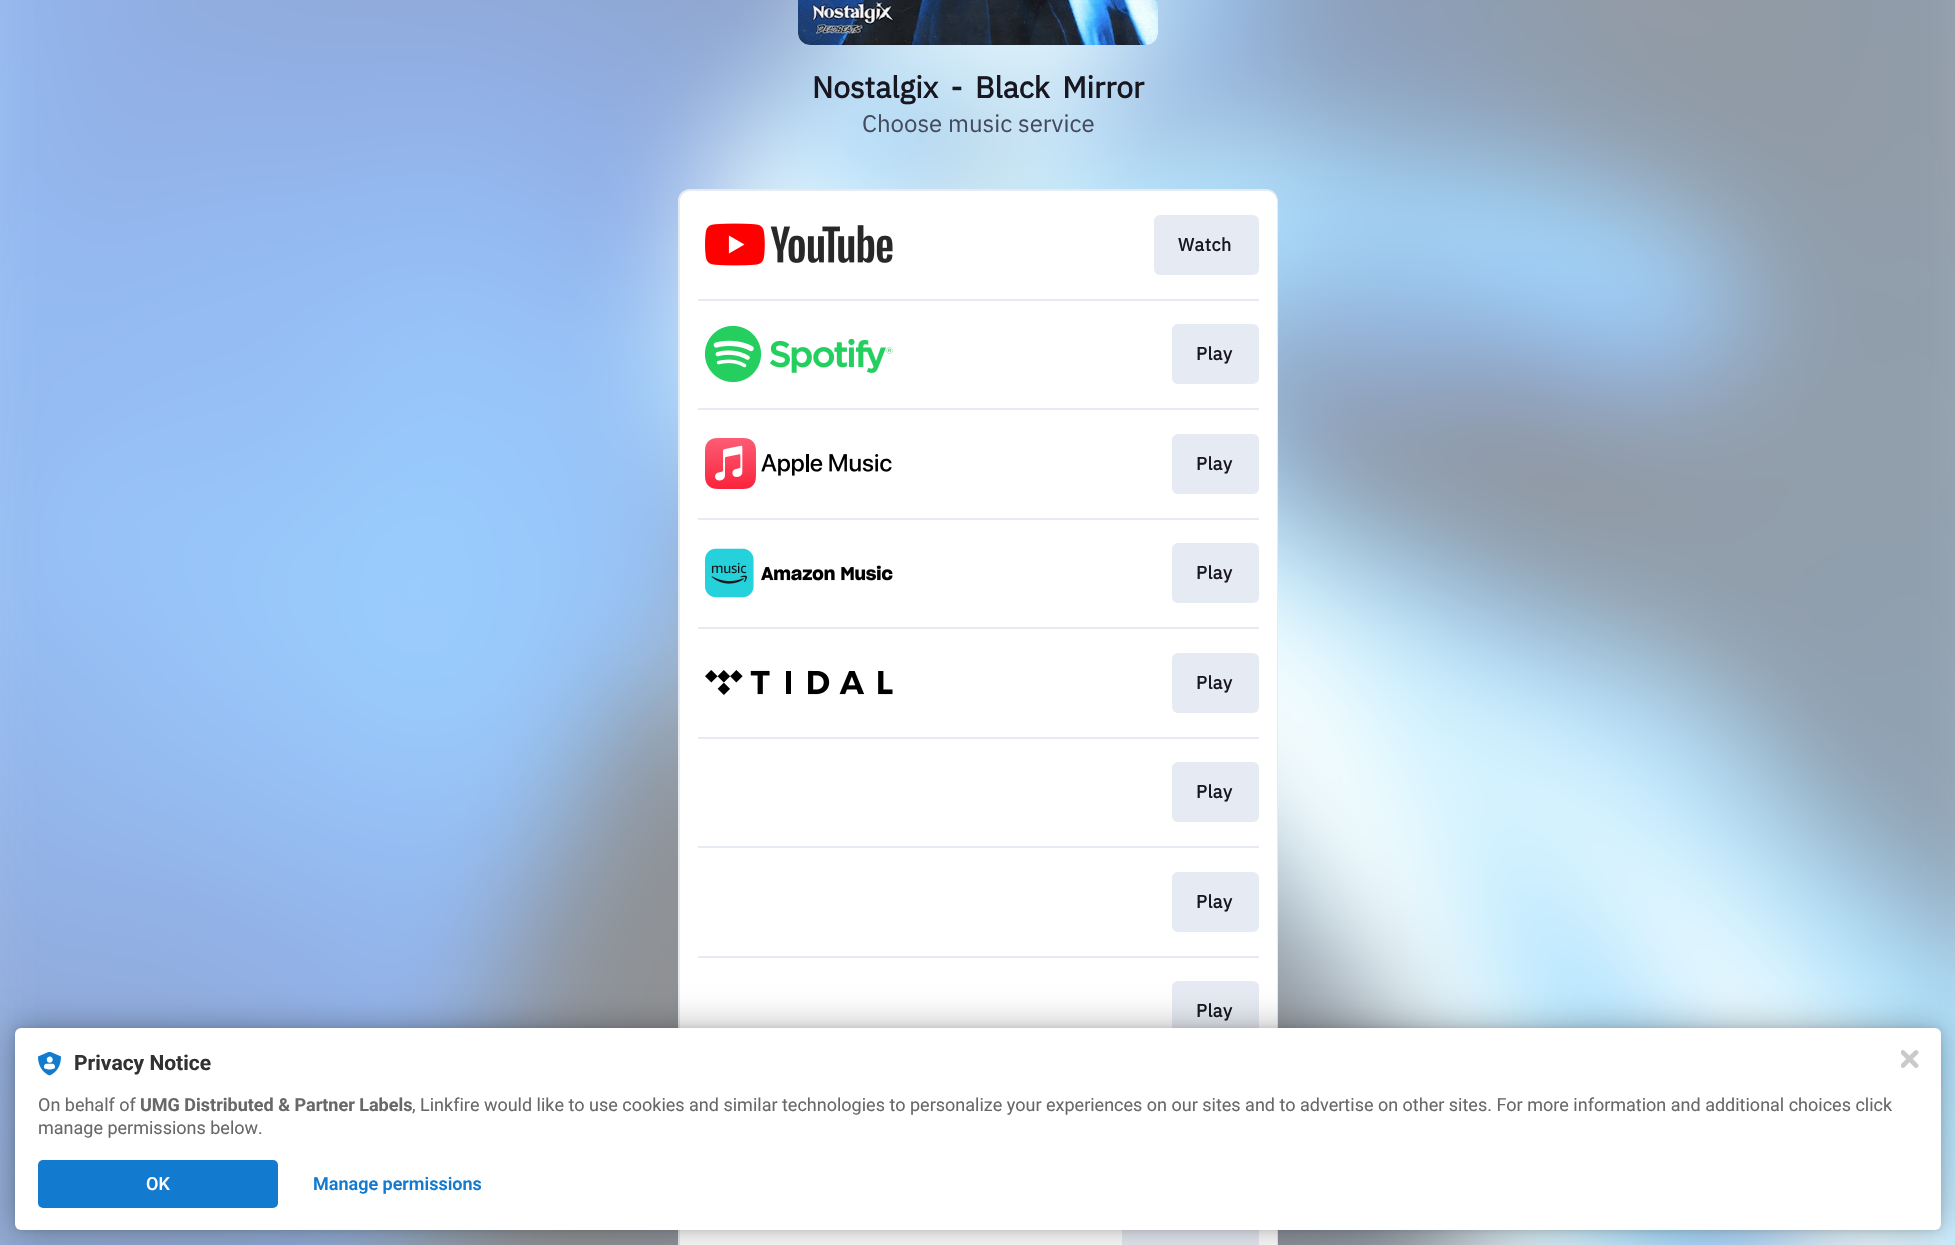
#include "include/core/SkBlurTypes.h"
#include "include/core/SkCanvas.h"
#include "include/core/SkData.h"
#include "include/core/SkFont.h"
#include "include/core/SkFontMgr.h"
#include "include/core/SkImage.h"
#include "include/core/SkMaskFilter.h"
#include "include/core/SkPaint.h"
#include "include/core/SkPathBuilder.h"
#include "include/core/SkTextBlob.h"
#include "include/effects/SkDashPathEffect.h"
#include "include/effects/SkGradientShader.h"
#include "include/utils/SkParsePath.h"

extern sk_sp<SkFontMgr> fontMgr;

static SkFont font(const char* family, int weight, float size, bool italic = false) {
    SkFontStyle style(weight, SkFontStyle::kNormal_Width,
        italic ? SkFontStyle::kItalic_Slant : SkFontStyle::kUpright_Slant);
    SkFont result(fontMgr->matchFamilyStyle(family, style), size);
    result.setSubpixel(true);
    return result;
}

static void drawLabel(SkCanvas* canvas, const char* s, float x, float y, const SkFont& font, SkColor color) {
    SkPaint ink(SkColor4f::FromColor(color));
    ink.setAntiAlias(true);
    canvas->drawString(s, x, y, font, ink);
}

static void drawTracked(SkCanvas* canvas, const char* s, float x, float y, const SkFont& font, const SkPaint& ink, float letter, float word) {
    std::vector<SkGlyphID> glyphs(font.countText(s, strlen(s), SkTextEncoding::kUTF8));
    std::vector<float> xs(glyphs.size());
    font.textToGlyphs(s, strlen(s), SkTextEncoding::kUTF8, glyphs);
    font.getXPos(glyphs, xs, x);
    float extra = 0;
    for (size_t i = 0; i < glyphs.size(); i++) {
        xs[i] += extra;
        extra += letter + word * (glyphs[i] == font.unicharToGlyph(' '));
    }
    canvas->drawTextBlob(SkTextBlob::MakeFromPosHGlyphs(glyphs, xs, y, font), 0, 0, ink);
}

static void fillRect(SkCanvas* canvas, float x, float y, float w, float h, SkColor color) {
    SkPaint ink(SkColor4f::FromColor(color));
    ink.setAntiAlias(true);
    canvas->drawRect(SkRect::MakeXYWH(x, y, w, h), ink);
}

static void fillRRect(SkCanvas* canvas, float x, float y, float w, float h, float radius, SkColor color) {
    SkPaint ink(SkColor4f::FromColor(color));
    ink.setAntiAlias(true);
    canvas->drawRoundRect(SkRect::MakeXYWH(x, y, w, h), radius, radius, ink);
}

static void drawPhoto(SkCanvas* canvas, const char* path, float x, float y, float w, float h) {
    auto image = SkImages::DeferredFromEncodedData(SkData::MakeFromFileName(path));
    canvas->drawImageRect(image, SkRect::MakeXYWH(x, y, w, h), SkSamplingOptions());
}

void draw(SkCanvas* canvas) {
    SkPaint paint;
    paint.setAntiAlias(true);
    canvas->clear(0xFFFFFFFF);
    drawPhoto(canvas, "assets/img1.png", 0, 0, 1955, 1245);
    drawPhoto(canvas, "assets/img2.png", 798, 0, 360, 45);
    SkFont font1 = font("IBM Plex Sans", 700, 30);
    paint.setColor(0xFF181721);
    drawTracked(canvas, "Nostalgix - Black Mirror", 812, 98, font1, paint, 0, 5.5f);
    SkFont font2 = font("IBM Plex Sans", 400, 24);
    drawLabel(canvas, "Choose music service", 862, 132, font2, 0xFF454B5F);
    paint.setColor(0xFFFFFFFF);
    canvas->drawRoundRect(SkRect::MakeXYWH(679, 190, 598, 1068), 11, 11, paint);
    paint.setStroke(true);
    paint.setStrokeWidth(2);
    paint.setColor(0xFFE6EAF2);
    canvas->drawRoundRect(SkRect::MakeXYWH(679, 190, 598, 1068), 11, 11, paint);
    fillRRect(canvas, 680, 191, 597, 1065, 11, 0xFFFFFFFF);
    drawPhoto(canvas, "assets/img3.png", 705, 223, 188, 43);
    fillRRect(canvas, 1154, 215, 105, 60, 6, 0xFFE6EAF2);
    SkFont font3 = font("IBM Plex Sans", 700, 18);
    paint.setStroke(false);
    paint.setColor(0xFF181721);
    drawTracked(canvas, "Watch", 1178, 251, font3, paint, 0.5f, 0);
    fillRect(canvas, 698, 299, 561, 2, 0xFFE6EAF2);
    drawPhoto(canvas, "assets/img4.png", 705, 325, 188, 58);
    fillRRect(canvas, 1172, 324, 87, 60, 6, 0xFFE6EAF2);
    drawTracked(canvas, "Play", 1196, 360, font3, paint, 0.5f, 0);
    fillRect(canvas, 698, 408, 561, 2, 0xFFE6EAF2);
    drawPhoto(canvas, "assets/img5.png", 705, 438, 187, 51);
    fillRRect(canvas, 1172, 434, 87, 60, 6, 0xFFE6EAF2);
    drawTracked(canvas, "Play", 1196, 470, font3, paint, 0.5f, 0);
    fillRect(canvas, 698, 518, 561, 2, 0xFFE6EAF2);
    drawPhoto(canvas, "assets/img6.png", 705, 548, 188, 50);
    fillRRect(canvas, 1172, 543, 87, 60, 6, 0xFFE6EAF2);
    drawTracked(canvas, "Play", 1196, 579, font3, paint, 0.5f, 0);
    fillRect(canvas, 698, 627, 561, 2, 0xFFE6EAF2);
    drawPhoto(canvas, "assets/img7.png", 705, 670, 188, 25);
    fillRRect(canvas, 1172, 653, 87, 60, 6, 0xFFE6EAF2);
    drawTracked(canvas, "Play", 1196, 689, font3, paint, 0.5f, 0);
    fillRect(canvas, 698, 737, 561, 2, 0xFFE6EAF2);
    fillRRect(canvas, 1172, 762, 87, 60, 6, 0xFFE6EAF2);
    drawTracked(canvas, "Play", 1196, 798, font3, paint, 0.5f, 0);
    fillRect(canvas, 698, 846, 561, 2, 0xFFE6EAF2);
    fillRRect(canvas, 1172, 872, 87, 60, 6, 0xFFE6EAF2);
    drawTracked(canvas, "Play", 1196, 908, font3, paint, 0.5f, 0);
    fillRect(canvas, 698, 956, 561, 2, 0xFFE6EAF2);
    fillRRect(canvas, 1172, 981, 87, 60, 6, 0xFFE6EAF2);
    drawTracked(canvas, "Play", 1196, 1017, font3, paint, 0.5f, 0);
    fillRect(canvas, 1122, 1230, 137, 15, 0xFFE6EAF2);
    paint.setColor(0x1F000000);
    paint.setMaskFilter(SkMaskFilter::MakeBlur(kNormal_SkBlurStyle, 3));
    canvas->drawRoundRect(SkRect::MakeXYWH(15, 1028, 1926, 202), 6, 6, paint);
    paint.setMaskFilter(nullptr);
    paint.setColor(0x4D000000);
    paint.setMaskFilter(SkMaskFilter::MakeBlur(kNormal_SkBlurStyle, 18));
    canvas->drawRoundRect(SkRect::MakeXYWH(15, 1028, 1926, 202), 6, 6, paint);
    paint.setMaskFilter(nullptr);
    fillRRect(canvas, 15, 1028, 1926, 202, 6, 0xFFFFFFFF);
    drawPhoto(canvas, "assets/img8.png", 38, 1052, 23, 24);
    SkFont font4 = font("Roboto", 700, 21);
    drawLabel(canvas, "Privacy Notice", 74, 1070, font4, 0xFF323232);
    SkFont font5 = font("Roboto", 400, 18);
    drawLabel(canvas, "On behalf of", 38, 1111, font5, 0xFF686868);
    SkFont font6 = font("Roboto", 700, 18);
    drawLabel(canvas, "UMG Distributed & Partner Labels", 140, 1111, font6, 0xFF686868);
    drawLabel(canvas, ", Linkfire would like to use cookies and similar technologies to personalize your experiences on our sites and to advertise on other sites. For more information and additional choices click", 412, 1111, font5, 0xFF686868);
    drawLabel(canvas, "manage permissions below.", 38, 1134, font5, 0xFF686868);
    fillRRect(canvas, 38, 1160, 240, 48, 5, 0xFF137BCF);
    SkFont font7 = font("Roboto", 500, 18);
    drawLabel(canvas, "OK", 146, 1190, font7, 0xFFFFFFFF);
    SkFont font8 = font("Roboto", 600, 18);
    drawLabel(canvas, "Manage permissions", 313, 1190, font8, 0xFF137BCF);
    drawPhoto(canvas, "assets/img9.png", 1901, 1050, 18, 18);
}
